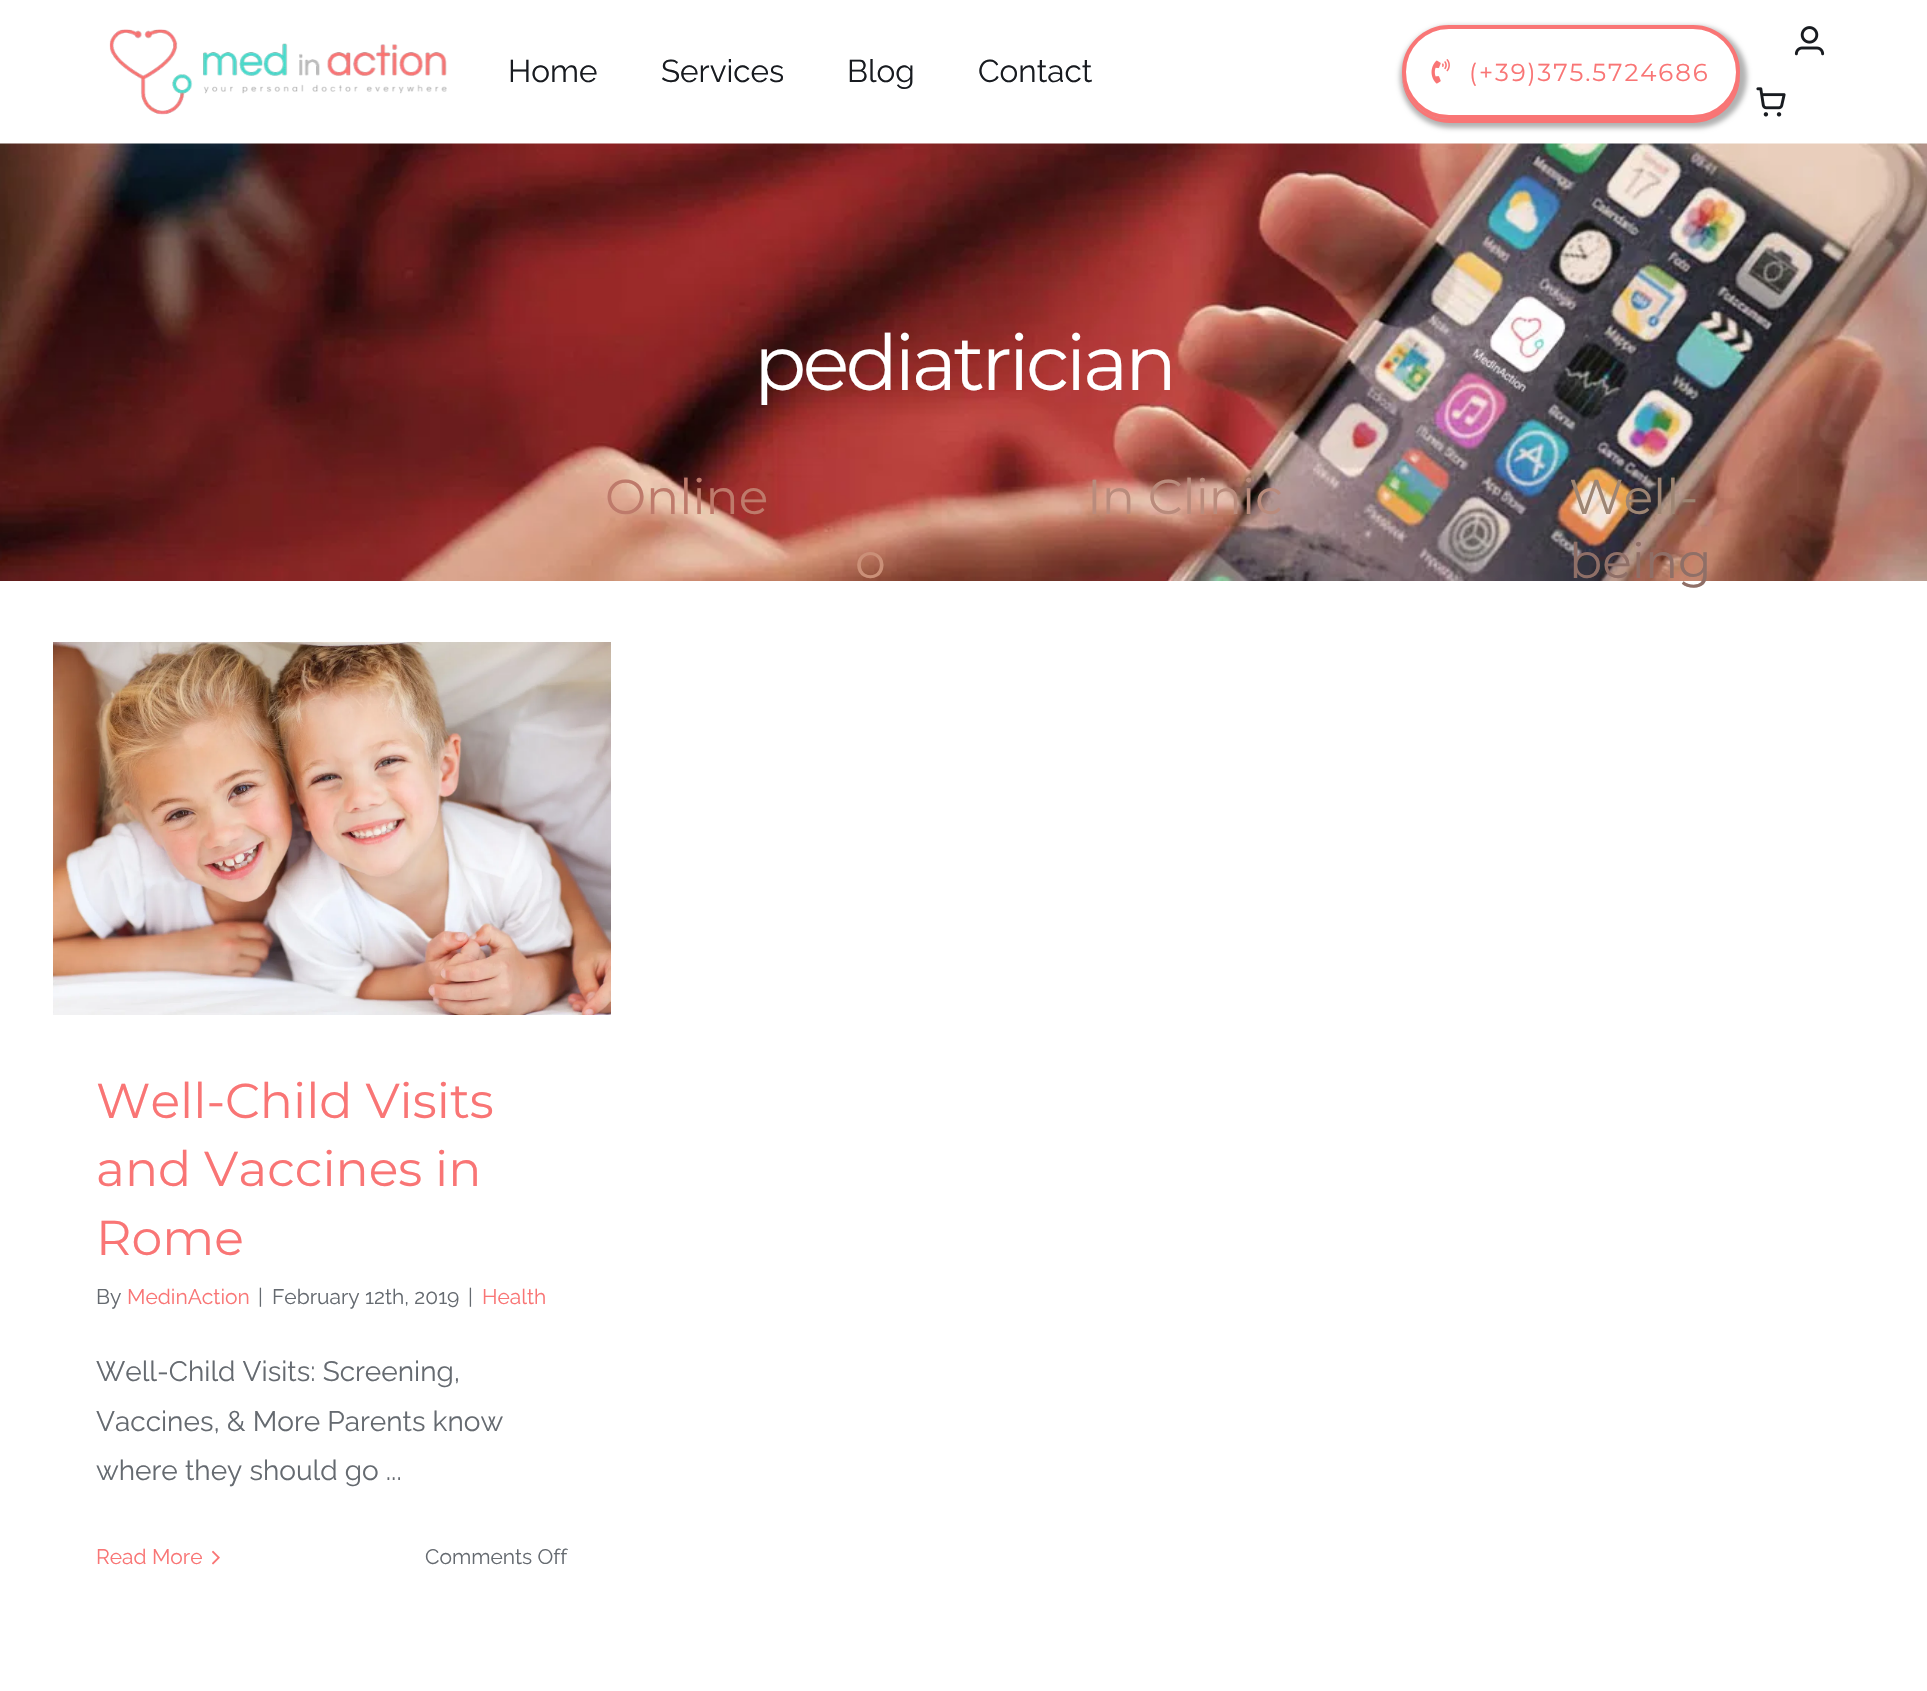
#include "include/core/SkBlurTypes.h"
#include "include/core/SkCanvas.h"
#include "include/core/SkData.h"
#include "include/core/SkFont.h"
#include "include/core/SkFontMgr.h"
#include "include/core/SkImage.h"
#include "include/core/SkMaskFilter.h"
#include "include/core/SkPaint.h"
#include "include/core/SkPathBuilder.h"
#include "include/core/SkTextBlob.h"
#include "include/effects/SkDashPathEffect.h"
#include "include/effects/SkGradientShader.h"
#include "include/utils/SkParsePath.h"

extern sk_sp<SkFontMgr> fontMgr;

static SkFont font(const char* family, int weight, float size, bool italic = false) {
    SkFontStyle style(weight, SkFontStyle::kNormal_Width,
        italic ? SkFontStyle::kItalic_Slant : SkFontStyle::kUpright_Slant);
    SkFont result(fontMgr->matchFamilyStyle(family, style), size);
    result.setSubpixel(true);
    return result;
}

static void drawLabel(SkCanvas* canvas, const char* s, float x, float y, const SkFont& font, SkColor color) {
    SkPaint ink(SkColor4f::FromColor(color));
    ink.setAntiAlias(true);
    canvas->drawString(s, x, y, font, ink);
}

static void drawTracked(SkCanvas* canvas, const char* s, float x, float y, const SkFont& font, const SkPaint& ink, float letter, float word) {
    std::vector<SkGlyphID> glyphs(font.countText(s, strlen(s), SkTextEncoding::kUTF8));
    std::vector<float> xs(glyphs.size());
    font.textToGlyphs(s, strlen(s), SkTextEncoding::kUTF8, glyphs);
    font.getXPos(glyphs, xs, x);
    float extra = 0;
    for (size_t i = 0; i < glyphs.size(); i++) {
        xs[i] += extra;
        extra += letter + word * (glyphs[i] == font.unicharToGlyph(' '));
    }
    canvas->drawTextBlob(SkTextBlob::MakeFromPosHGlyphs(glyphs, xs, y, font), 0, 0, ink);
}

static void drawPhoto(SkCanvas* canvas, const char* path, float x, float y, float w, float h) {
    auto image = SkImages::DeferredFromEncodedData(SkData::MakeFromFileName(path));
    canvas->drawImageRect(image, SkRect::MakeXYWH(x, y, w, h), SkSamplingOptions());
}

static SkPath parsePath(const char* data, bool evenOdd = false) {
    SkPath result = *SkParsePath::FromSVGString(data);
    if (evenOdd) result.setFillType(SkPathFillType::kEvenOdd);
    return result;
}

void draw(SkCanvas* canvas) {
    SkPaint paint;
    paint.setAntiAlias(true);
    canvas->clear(0xFFFFFFFF);
    drawPhoto(canvas, "assets/img1.png", 109, 29, 338, 86);
    SkFont font1 = font("Raleway", 400, 31.5f);
    drawLabel(canvas, "Home", 508, 82, font1, 0xFF181B20);
    drawLabel(canvas, "Services", 661, 82, font1, 0xFF181B20);
    drawPhoto(canvas, "assets/img5.png", 0, 143, 1927, 438);
    SkFont font2 = font("Montserrat", 100, 49);
    drawLabel(canvas, "Online", 605, 514, font2, 0xFFBE7A6B);
    drawLabel(canvas, "o", 855, 578, font2, 0xFFCB9078);
    drawLabel(canvas, "In Clinic", 1087, 514, font2, 0xFFB98B7C);
    drawLabel(canvas, "Well-", 1569, 514, font2, 0xFF9D8573);
    drawLabel(canvas, "being", 1569, 578, font2, 0xFF8F6F67);
    drawLabel(canvas, "Blog", 847, 82, font1, 0xFF181B20);
    drawLabel(canvas, "Contact", 978, 82, font1, 0xFF181B20);
    paint.setColor(0x4D000000);
    paint.setMaskFilter(SkMaskFilter::MakeBlur(kNormal_SkBlurStyle, 2.5f));
    canvas->drawRoundRect(SkRect::MakeXYWH(1400, 26, 347, 102), 51, 51, paint);
    paint.setMaskFilter(nullptr);
    paint.setColor(0xFFF97575);
    canvas->drawPath(parsePath("M1402 77C1403 102 1424 123 1450 123H1692C1719 123 1740 102 1740 76L1739 67L1740 72C1740 98 1718 119 1692 119H1449C1425 119 1405 101 1402 77Z"), paint);
    paint.setColor(0xFFFFFFFF);
    canvas->drawRoundRect(SkRect::MakeXYWH(1404, 27, 334, 90), 45, 45, paint);
    paint.setStroke(true);
    paint.setStrokeWidth(4);
    paint.setColor(0xFFF97575);
    canvas->drawRoundRect(SkRect::MakeXYWH(1404, 27, 334, 90), 45, 45, paint);
    drawPhoto(canvas, "assets/img2.png", 1431, 59, 19, 25);
    SkFont font3 = font("Montserrat", 100, 24.5f);
    paint.setStroke(false);
    drawTracked(canvas, "(+39)375.5724686", 1469, 81, font3, paint, 1.9f, 0);
    drawPhoto(canvas, "assets/img3.png", 1794, 26, 31, 30);
    drawPhoto(canvas, "assets/img4.png", 1756, 87, 30, 30);
    SkFont font4 = font("Montserrat", 100, 77);
    paint.setColor(0xFFFFFFFF);
    drawTracked(canvas, "pediatrician", 754, 390, font4, paint, -3.5f, 0);
    drawPhoto(canvas, "assets/img6.png", 53, 642, 558, 373);
    drawLabel(canvas, "Well-Child Visits", 96, 1118, font2, 0xFFF97575);
    drawLabel(canvas, "and Vaccines in", 96, 1186, font2, 0xFFF97575);
    drawLabel(canvas, "Rome", 96, 1255, font2, 0xFFF97575);
    SkFont font5 = font("Raleway", 400, 21);
    drawLabel(canvas, "By", 96, 1304, font5, 0xFF656A70);
    drawLabel(canvas, "MedinAction", 127, 1304, font5, 0xFFF97575);
    drawLabel(canvas, "|", 258, 1304, font5, 0xFF656A70);
    drawLabel(canvas, "February 12th, 2019", 272, 1304, font5, 0xFF656A70);
    drawLabel(canvas, "|", 468, 1304, font5, 0xFF656A70);
    drawLabel(canvas, "Health", 482, 1304, font5, 0xFFF97575);
    SkFont font6 = font("Raleway", 400, 28);
    drawLabel(canvas, "Well-Child Visits: Screening,", 96, 1381, font6, 0xFF656A70);
    drawLabel(canvas, "Vaccines, & More Parents know", 96, 1431, font6, 0xFF656A70);
    drawLabel(canvas, "where they should go ...", 96, 1480, font6, 0xFF656A70);
    drawLabel(canvas, "Read More", 96, 1564, font5, 0xFFF97575);
    drawPhoto(canvas, "assets/img7.png", 212, 1550, 8, 15);
    drawLabel(canvas, "Comments Off", 425, 1564, font5, 0xFF656A70);
}
